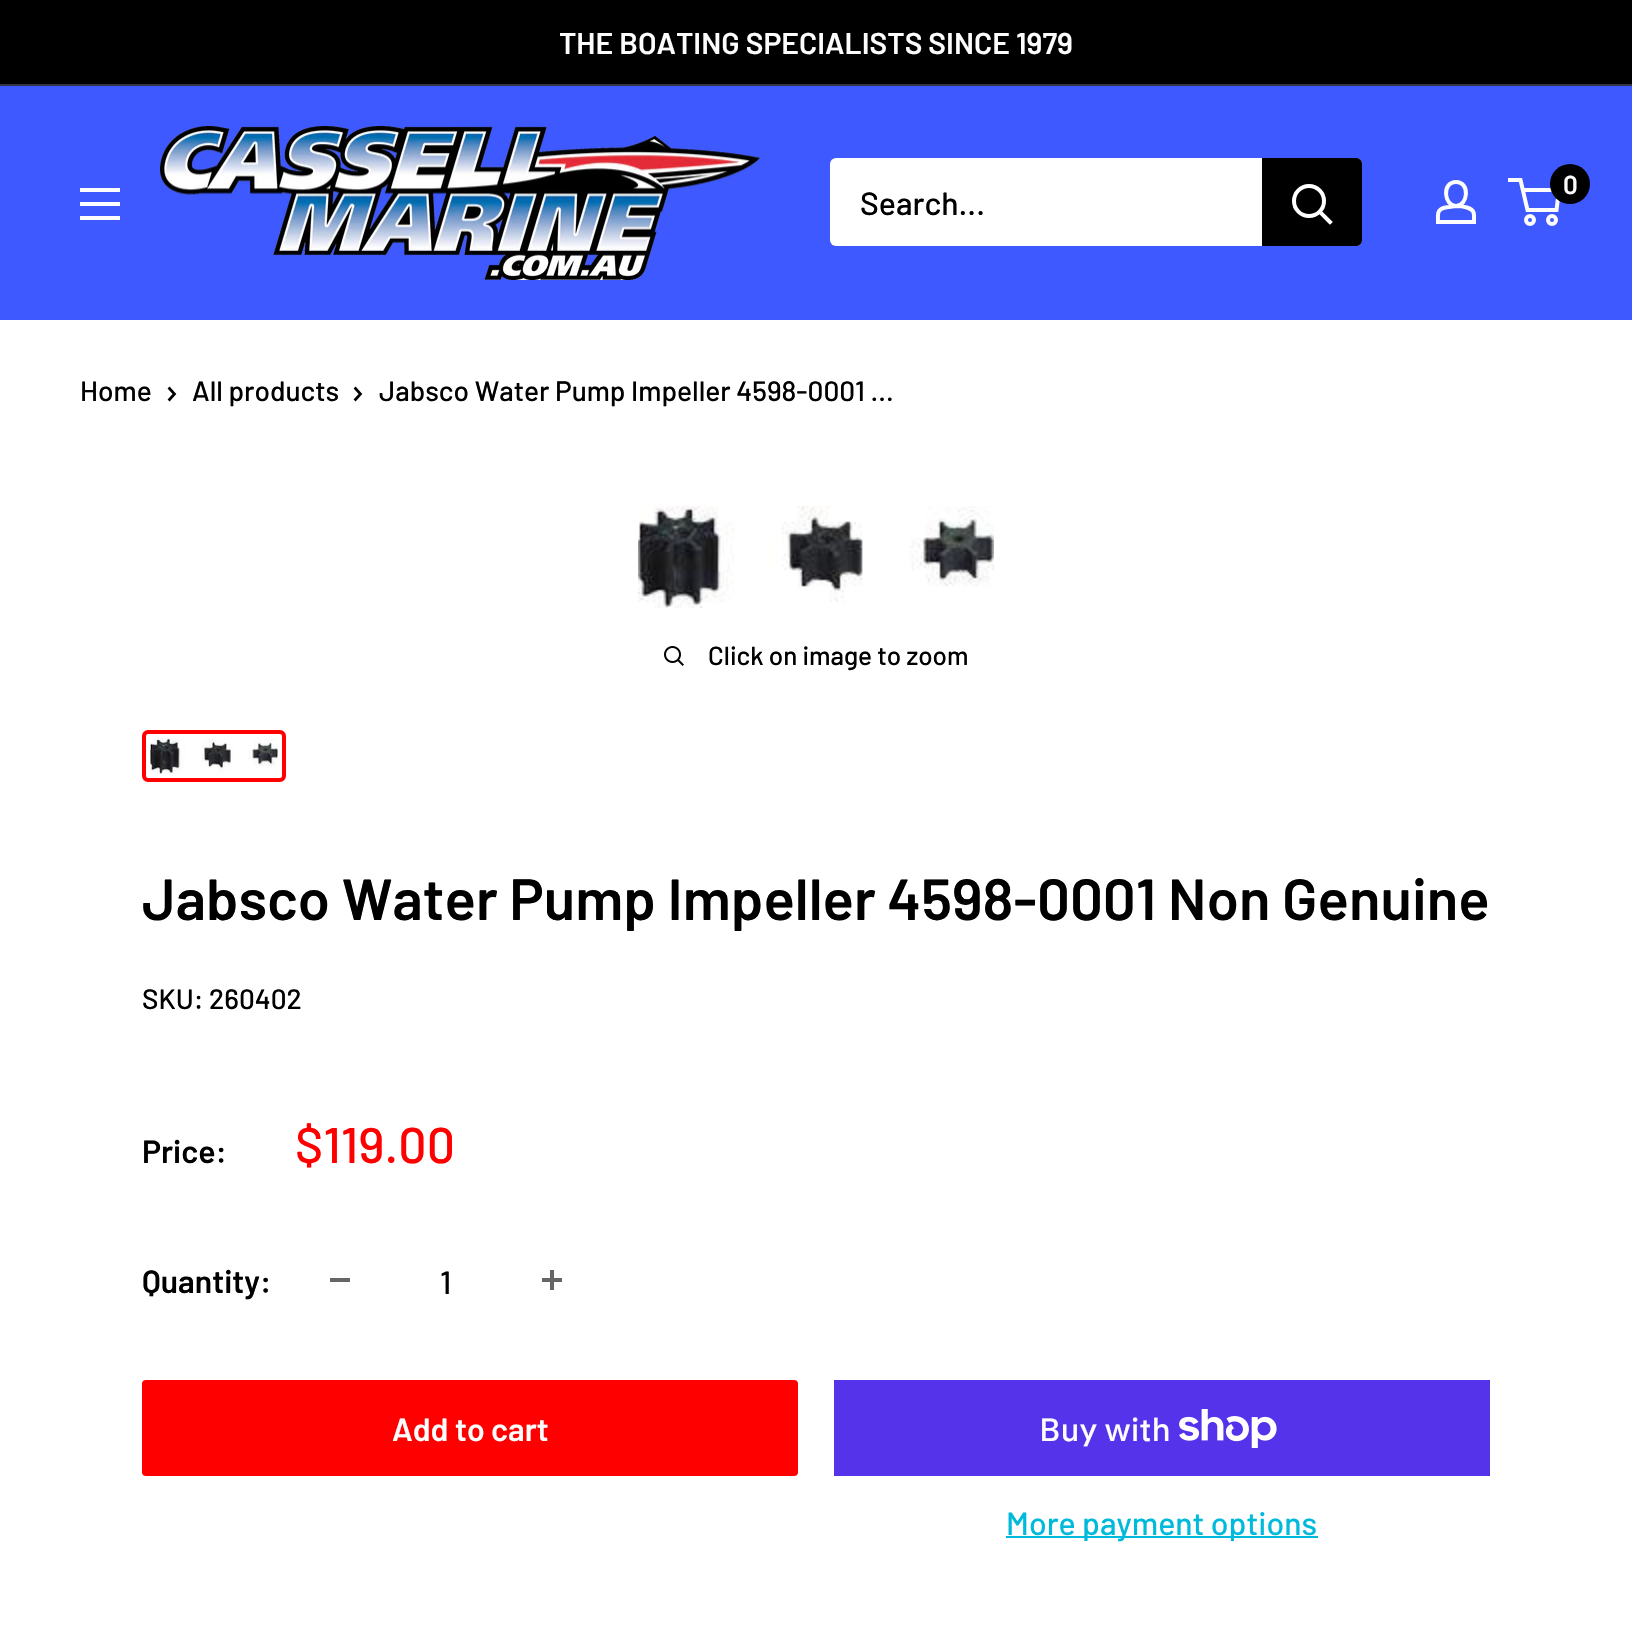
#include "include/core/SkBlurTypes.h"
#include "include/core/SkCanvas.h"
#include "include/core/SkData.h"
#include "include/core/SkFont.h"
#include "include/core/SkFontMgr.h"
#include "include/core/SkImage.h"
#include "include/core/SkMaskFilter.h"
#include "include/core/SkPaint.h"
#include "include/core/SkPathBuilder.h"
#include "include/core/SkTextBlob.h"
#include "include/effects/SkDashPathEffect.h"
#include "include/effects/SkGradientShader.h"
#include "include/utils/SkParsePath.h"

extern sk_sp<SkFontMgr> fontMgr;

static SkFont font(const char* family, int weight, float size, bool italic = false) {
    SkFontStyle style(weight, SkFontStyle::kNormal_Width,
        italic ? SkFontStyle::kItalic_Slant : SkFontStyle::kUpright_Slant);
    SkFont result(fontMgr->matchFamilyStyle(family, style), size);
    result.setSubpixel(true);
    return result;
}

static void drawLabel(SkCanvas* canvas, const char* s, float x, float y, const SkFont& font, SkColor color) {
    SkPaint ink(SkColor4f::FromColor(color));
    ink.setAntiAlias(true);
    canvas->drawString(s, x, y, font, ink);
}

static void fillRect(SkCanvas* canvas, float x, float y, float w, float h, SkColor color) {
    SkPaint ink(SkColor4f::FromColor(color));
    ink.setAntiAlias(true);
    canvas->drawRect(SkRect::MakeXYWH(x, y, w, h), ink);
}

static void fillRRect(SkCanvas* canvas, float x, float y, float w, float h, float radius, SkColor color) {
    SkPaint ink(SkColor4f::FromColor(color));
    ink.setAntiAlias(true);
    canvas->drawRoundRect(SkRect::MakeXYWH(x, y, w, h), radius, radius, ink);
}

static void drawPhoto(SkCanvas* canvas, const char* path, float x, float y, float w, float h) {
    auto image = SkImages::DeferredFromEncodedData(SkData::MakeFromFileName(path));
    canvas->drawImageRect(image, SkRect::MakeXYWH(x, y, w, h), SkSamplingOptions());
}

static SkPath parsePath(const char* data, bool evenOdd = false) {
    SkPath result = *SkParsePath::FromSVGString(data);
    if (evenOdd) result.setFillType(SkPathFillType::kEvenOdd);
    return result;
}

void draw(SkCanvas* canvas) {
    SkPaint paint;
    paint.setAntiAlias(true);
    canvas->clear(0xFFFFFFFF);
    fillRect(canvas, 0, 0, 1632, 84, 0xFF000000);
    fillRect(canvas, 0, 84, 1632, 2, 0xFF313548);
    SkFont font1 = font("Barlow", 600, 30);
    drawLabel(canvas, "THE BOATING SPECIALISTS SINCE 1979", 559, 54, font1, 0xFFFDFDFD);
    fillRect(canvas, 0, 86, 1632, 234, 0xFF3D59FF);
    drawPhoto(canvas, "assets/img1.png", 160, 126, 600, 154);
    paint.setStroke(true);
    paint.setStrokeWidth(4);
    paint.setColor(0xFFFDFDFD);
    canvas->drawPath(parsePath("M1456 206C1460 206 1463.5 206.5 1467 207.5C1475.5 210 1474 214.5 1474 222H1438C1438 214 1436.5 209.5 1445.5 207.5ZM1456 206C1444 206 1441.5 182 1456 182C1470.5 182 1468 206 1456 206Z"), paint);
    canvas->drawCircle(1530, 220, 4, paint);
    canvas->drawCircle(1552, 220, 4, paint);
    canvas->drawPath(parsePath("M1522.5 190H1559L1556.5 210H1527.5L1520.5 180H1508"), paint);
    paint.setStroke(false);
    paint.setColor(0xFF000000);
    canvas->drawCircle(1570, 184, 20, paint);
    SkFont font2 = font("Barlow", 600, 26);
    drawLabel(canvas, "0", 1563, 194, font2, 0xFFFDFDFD);
    paint.setColor(0xFFFDFDFD);
    canvas->drawPath(parsePath("M80 216H120V220H80ZM80 188H120V192H80ZM80 202H120V206H80Z", true), paint);
    fillRRect(canvas, 830, 158, 532, 88, 6, 0xFFFFFFFF);
    SkFont font3 = font("Barlow", 500, 32);
    drawLabel(canvas, "Search...", 860, 215, font3, 0xFF000000);
    paint.setColor(0xFF000000);
    canvas->drawPath(parsePath("M1262 158H1356C1359.5 158 1362 160.5 1362 164V240C1362 243.5 1359.5 246 1356 246H1262Z"), paint);
    paint.setStroke(true);
    paint.setStrokeCap(SkPaint::kSquare_Cap);
    paint.setColor(0xFFFFFFFF);
    canvas->drawPath(parsePath("M1330 222L1320 212"), paint);
    paint.setStrokeCap(SkPaint::kButt_Cap);
    canvas->drawCircle(1309, 201, 15, paint);
    SkFont font4 = font("Barlow", 500, 28);
    drawLabel(canvas, "Home", 80, 401, font4, 0xFF000000);
    paint.setStrokeWidth(2.7f);
    paint.setStrokeCap(SkPaint::kSquare_Cap);
    paint.setColor(0xFF000000);
    canvas->drawPath(parsePath("M169.5 388.5L174.5 394L169.5 399.5"), paint);
    drawLabel(canvas, "All products", 192, 401, font4, 0xFF000000);
    canvas->drawPath(parsePath("M355.5 388.5L360.5 394L355.5 399.5"), paint);
    drawLabel(canvas, "Jabsco Water Pump Impeller 4598-0001 ...", 379, 401, font4, 0xFF000000);
    drawPhoto(canvas, "assets/img2.png", 638, 506, 356, 102);
    drawPhoto(canvas, "assets/img3.png", 664, 646, 20, 20);
    SkFont font5 = font("Barlow", 500, 26);
    drawLabel(canvas, "Click on image to zoom", 708, 665, font5, 0xFF000000);
    paint.setStrokeWidth(4);
    paint.setStrokeCap(SkPaint::kButt_Cap);
    paint.setColor(0xFFFF0000);
    canvas->drawRoundRect(SkRect::MakeXYWH(144, 732, 140, 48), 4, 4, paint);
    drawPhoto(canvas, "assets/img4.png", 150, 738, 128, 36);
    SkFont font6 = font("Barlow", 600, 58);
    drawLabel(canvas, "Jabsco Water Pump Impeller 4598-0001 Non Genuine", 142, 920, font6, 0xFF000000);
    drawLabel(canvas, "SKU: 260402", 142, 1009, font4, 0xFF000000);
    SkFont font7 = font("Barlow", 600, 32);
    drawLabel(canvas, "Price:", 142, 1163, font7, 0xFF000000);
    SkFont font8 = font("Barlow", 500, 50);
    drawLabel(canvas, "$119.00", 295, 1163, font8, 0xFFFF0000);
    drawLabel(canvas, "Quantity:", 142, 1293, font7, 0xFF000000);
    fillRect(canvas, 330, 1278, 20, 4, 0xFF666666);
    drawLabel(canvas, "1", 440, 1294, font3, 0xFF000000);
    drawPhoto(canvas, "assets/img5.png", 542, 1270, 20, 20);
    fillRRect(canvas, 142, 1380, 656, 96, 4, 0xFFFF0000);
    drawLabel(canvas, "Add to cart", 392, 1441, font7, 0xFFFDFDFD);
    fillRect(canvas, 834, 1380, 656, 96, 0xFF5433EB);
    SkFont font9 = font("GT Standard", 500, 32);
    drawLabel(canvas, "Buy with", 1039, 1441, font9, 0xFFFDFDFD);
    drawPhoto(canvas, "assets/img6.png", 1179, 1409, 98, 39);
    fillRect(canvas, 1006, 1536, 312, 2, 0xFF00BADB);
    drawLabel(canvas, "More payment options", 1006, 1535, font3, 0xFF00BADB);
}
